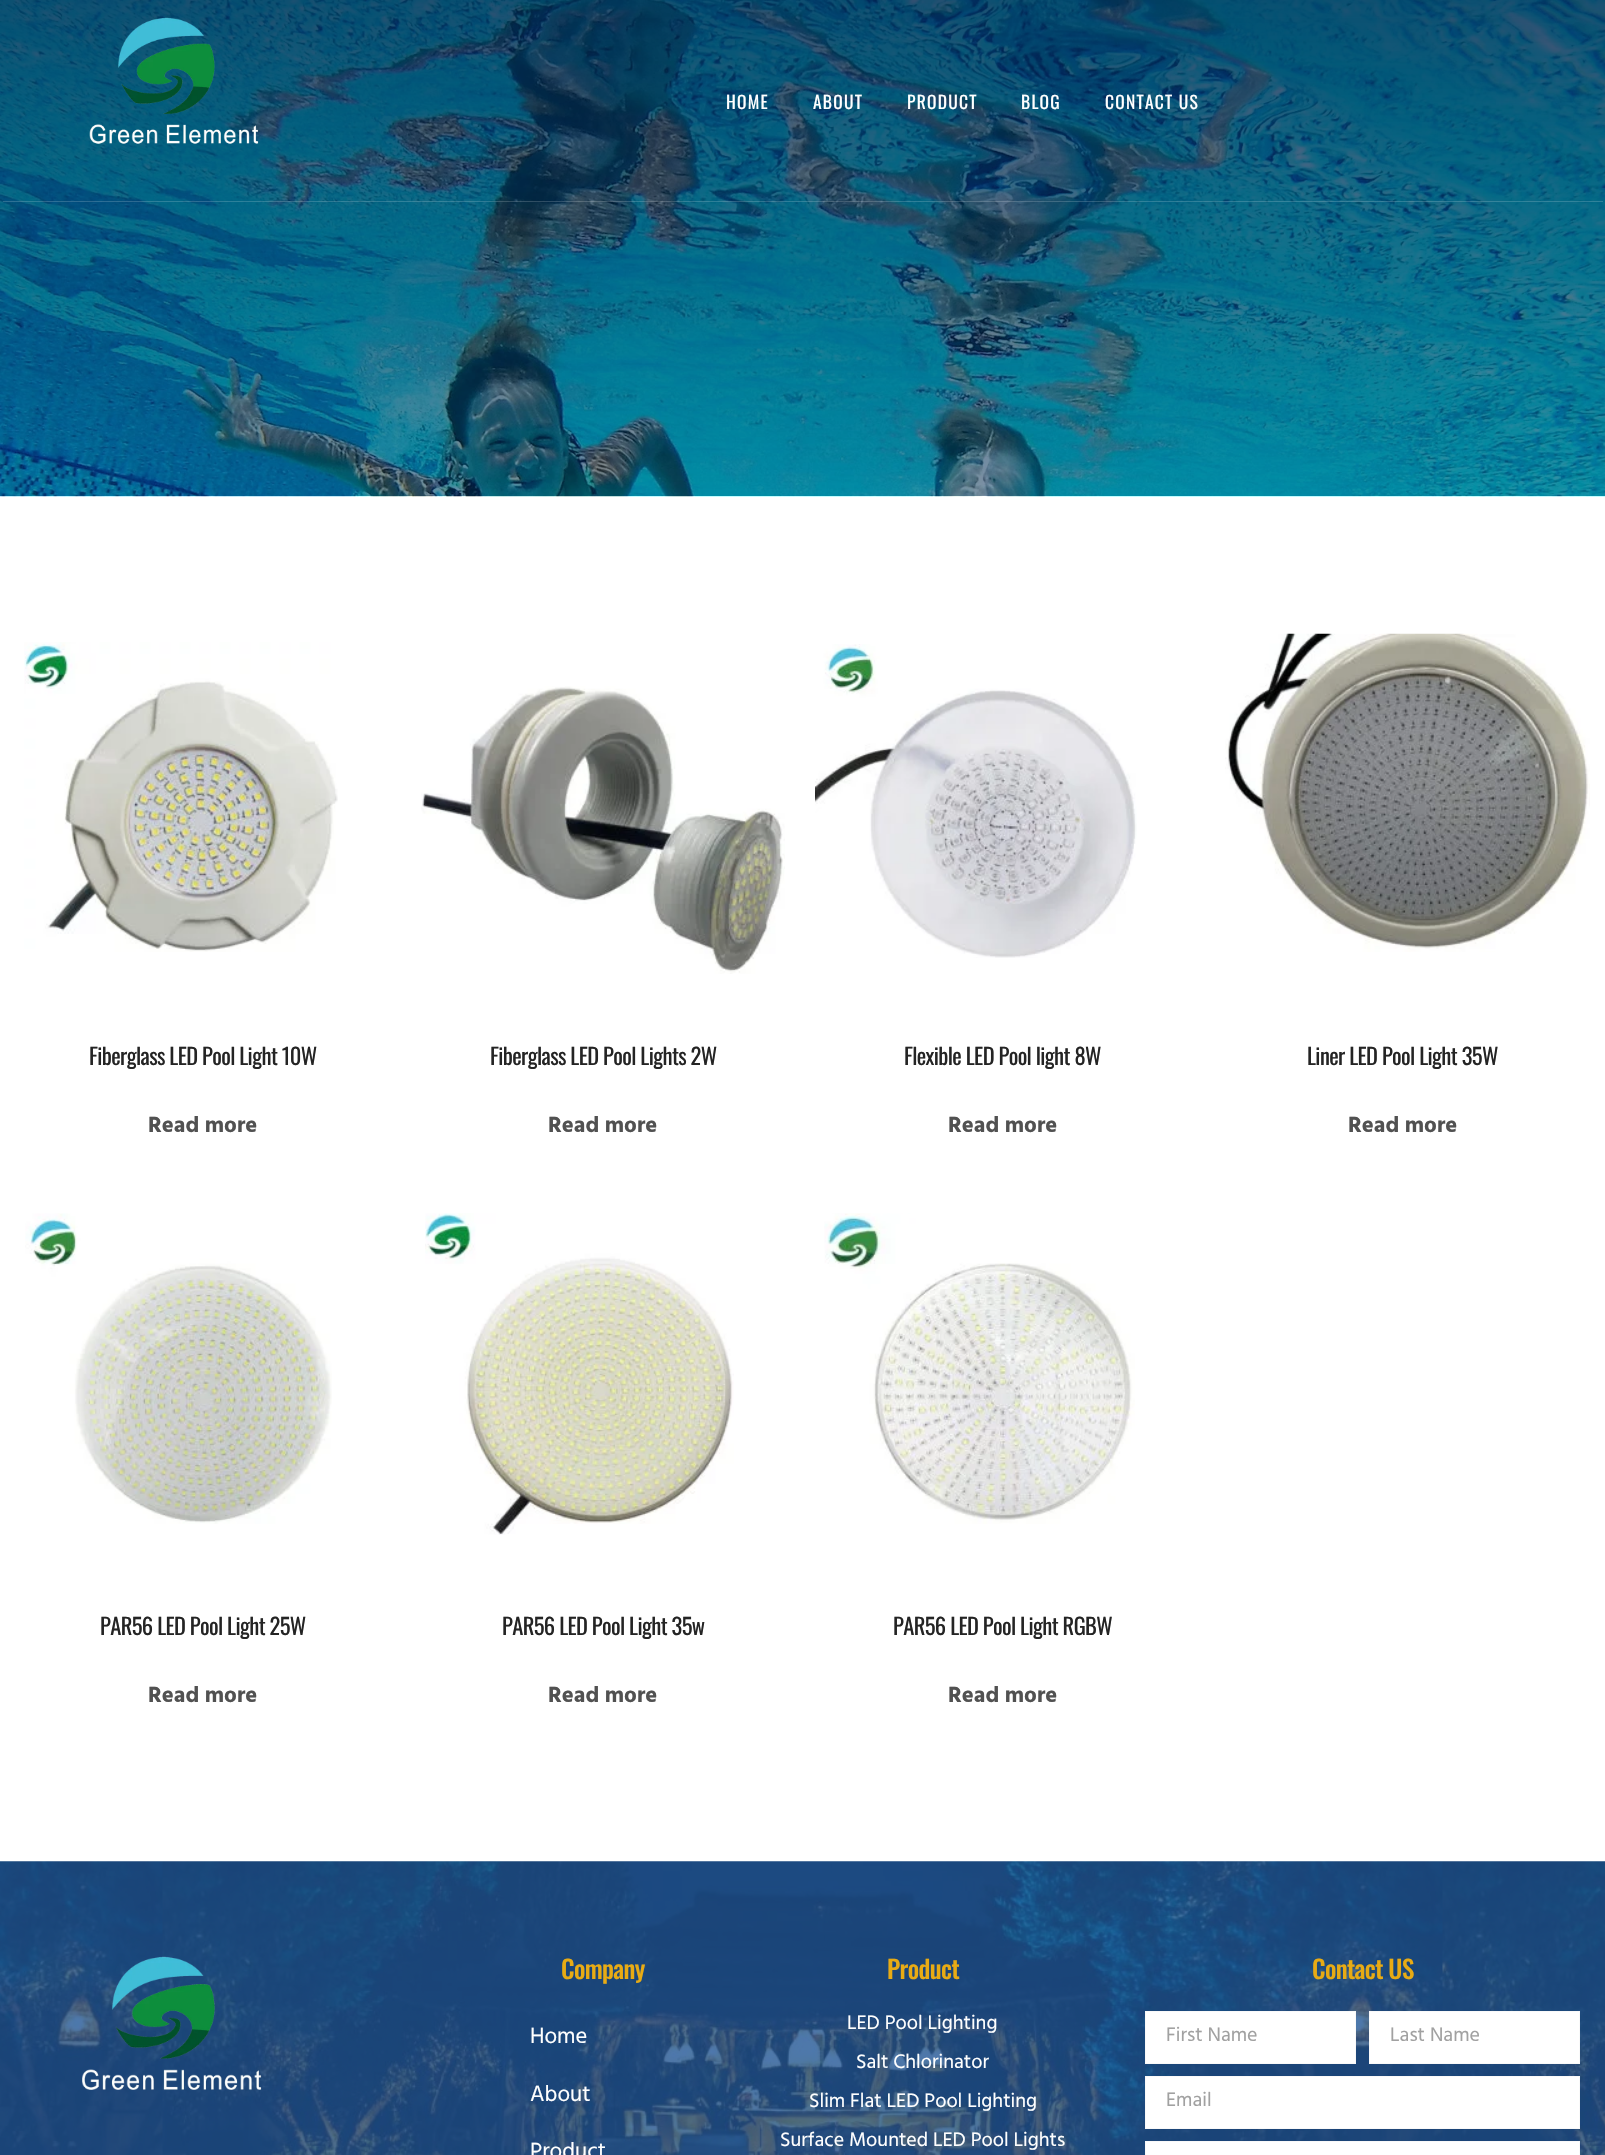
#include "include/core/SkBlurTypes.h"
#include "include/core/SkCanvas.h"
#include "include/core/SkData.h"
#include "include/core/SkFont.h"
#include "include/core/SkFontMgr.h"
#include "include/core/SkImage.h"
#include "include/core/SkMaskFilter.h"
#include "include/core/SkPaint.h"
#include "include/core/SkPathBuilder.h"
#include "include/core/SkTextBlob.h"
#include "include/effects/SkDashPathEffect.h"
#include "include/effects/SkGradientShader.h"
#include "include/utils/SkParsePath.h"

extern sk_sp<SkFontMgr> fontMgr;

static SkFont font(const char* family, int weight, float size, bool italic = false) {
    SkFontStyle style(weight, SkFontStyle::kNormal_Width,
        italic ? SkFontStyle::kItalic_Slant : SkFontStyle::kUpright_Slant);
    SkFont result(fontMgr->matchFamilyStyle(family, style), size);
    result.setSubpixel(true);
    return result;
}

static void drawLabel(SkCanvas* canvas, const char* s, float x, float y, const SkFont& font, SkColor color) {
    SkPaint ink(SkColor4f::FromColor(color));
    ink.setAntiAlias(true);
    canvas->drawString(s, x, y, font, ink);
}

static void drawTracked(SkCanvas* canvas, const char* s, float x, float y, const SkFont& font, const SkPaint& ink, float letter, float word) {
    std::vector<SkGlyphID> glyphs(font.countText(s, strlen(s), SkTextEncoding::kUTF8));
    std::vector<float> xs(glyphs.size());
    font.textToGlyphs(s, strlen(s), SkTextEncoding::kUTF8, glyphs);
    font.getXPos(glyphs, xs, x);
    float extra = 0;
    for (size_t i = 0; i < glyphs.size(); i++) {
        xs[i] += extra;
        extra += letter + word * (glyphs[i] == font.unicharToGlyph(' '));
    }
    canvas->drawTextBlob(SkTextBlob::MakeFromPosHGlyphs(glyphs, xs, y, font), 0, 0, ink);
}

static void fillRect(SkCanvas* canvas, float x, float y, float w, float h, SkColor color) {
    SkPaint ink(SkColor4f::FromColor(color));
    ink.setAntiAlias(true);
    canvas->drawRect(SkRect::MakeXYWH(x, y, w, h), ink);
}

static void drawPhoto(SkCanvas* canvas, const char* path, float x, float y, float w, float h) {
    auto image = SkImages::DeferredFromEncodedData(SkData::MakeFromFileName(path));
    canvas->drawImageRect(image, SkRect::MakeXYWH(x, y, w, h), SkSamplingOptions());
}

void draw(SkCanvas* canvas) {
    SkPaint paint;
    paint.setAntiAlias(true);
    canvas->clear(0xFFFFFFFF);
    drawPhoto(canvas, "assets/img2.png", 0, 0, 1605, 497);
    fillRect(canvas, 3, 201, 1600, 1, 0x2BFFFFFF);
    drawPhoto(canvas, "assets/img1.png", 89, 17, 170, 127);
    SkFont font1 = font("Oswald", 400, 17.5f);
    paint.setColor(0xFFFFFFFF);
    drawTracked(canvas, "HOME", 726, 109, font1, paint, 1.25f, 0);
    drawTracked(canvas, "ABOUT", 813, 109, font1, paint, 1.25f, 0);
    drawTracked(canvas, "PRODUCT", 907, 109, font1, paint, 1.25f, 0);
    drawTracked(canvas, "BLOG", 1021, 109, font1, paint, 1.25f, 0);
    drawTracked(canvas, "CONTACT US", 1105, 109, font1, paint, 1.25f, 0);
    drawPhoto(canvas, "assets/img3.png", 24, 642, 314, 310);
    SkFont font2 = font("Oswald", 400, 22.5f);
    paint.setColor(0xFF242424);
    drawTracked(canvas, "Fiberglass LED Pool Light 10W", 89, 1065, font2, paint, -0.6f, 0);
    SkFont font3 = font("Hind Guntur", 700, 22.5f);
    drawLabel(canvas, "Read more", 148, 1132, font3, 0xFF515151);
    drawPhoto(canvas, "assets/img4.png", 421, 686, 364, 288);
    drawTracked(canvas, "Fiberglass LED Pool Lights 2W", 490, 1065, font2, paint, -0.6f, 0);
    drawLabel(canvas, "Read more", 548, 1132, font3, 0xFF515151);
    drawPhoto(canvas, "assets/img5.png", 815, 644, 322, 314);
    drawTracked(canvas, "Flexible LED Pool light 8W", 904, 1065, font2, paint, -0.6f, 0);
    drawLabel(canvas, "Read more", 948, 1132, font3, 0xFF515151);
    drawPhoto(canvas, "assets/img6.png", 1225, 633, 365, 319);
    drawTracked(canvas, "Liner LED Pool Light 35W", 1307, 1065, font2, paint, -0.6f, 0);
    drawLabel(canvas, "Read more", 1348, 1132, font3, 0xFF515151);
    drawPhoto(canvas, "assets/img7.png", 25, 1213, 307, 311);
    drawTracked(canvas, "PAR56 LED Pool Light 25W", 100, 1635, font2, paint, -0.6f, 0);
    drawLabel(canvas, "Read more", 148, 1702, font3, 0xFF515151);
    drawPhoto(canvas, "assets/img8.png", 425, 1213, 309, 322);
    drawTracked(canvas, "PAR56 LED Pool Light 35w", 502, 1635, font2, paint, -0.6f, 0);
    drawLabel(canvas, "Read more", 548, 1702, font3, 0xFF515151);
    drawPhoto(canvas, "assets/img9.png", 824, 1213, 311, 311);
    drawTracked(canvas, "PAR56 LED Pool Light RGBW", 893, 1635, font2, paint, -0.6f, 0);
    drawLabel(canvas, "Read more", 948, 1702, font3, 0xFF515151);
    drawPhoto(canvas, "assets/img10.png", 0, 1861, 1605, 294);
    drawPhoto(canvas, "assets/img11.png", 82, 1956, 180, 134);
    SkFont font4 = font("Oswald", 500, 25);
    paint.setColor(0xFFE8AB14);
    drawTracked(canvas, "Company", 561, 1979, font4, paint, -0.6f, 0);
    SkFont font5 = font("Hind Guntur", 400, 22.5f);
    drawLabel(canvas, "Home", 530, 2043, font5, 0xFFFFFFFF);
    drawLabel(canvas, "About", 530, 2101, font5, 0xFFFFFFFF);
    drawLabel(canvas, "Product", 530, 2158, font5, 0xFFFFFFFF);
    drawTracked(canvas, "Product", 887, 1979, font4, paint, -0.6f, 0);
    SkFont font6 = font("Hind Guntur", 400, 20);
    drawLabel(canvas, "LED Pool Lighting", 847, 2029, font6, 0xFFFFFFFF);
    drawLabel(canvas, "Salt Chlorinator", 856, 2068, font6, 0xFFFFFFFF);
    drawLabel(canvas, "Slim Flat LED Pool Lighting", 809, 2107, font6, 0xFFFFFFFF);
    drawLabel(canvas, "Surface Mounted LED Pool Lights", 780, 2146, font6, 0xFFFFFFFF);
    drawTracked(canvas, "Contact US", 1312, 1979, font4, paint, -0.6f, 0);
    paint.setColor(0xFFFFFFFF);
    canvas->drawRect(SkRect::MakeXYWH(1145.5f, 2011.5f, 210, 52), paint);
    paint.setStroke(true);
    paint.setStrokeWidth(1);
    paint.setColor(0xFFF9F9F9);
    canvas->drawRect(SkRect::MakeXYWH(1145.5f, 2011.5f, 210, 52), paint);
    drawLabel(canvas, "First Name", 1166, 2041, font6, 0xFFA1A1A1);
    paint.setStroke(false);
    paint.setColor(0xFFFFFFFF);
    canvas->drawRect(SkRect::MakeXYWH(1369.5f, 2011.5f, 210, 52), paint);
    paint.setStroke(true);
    paint.setColor(0xFFF9F9F9);
    canvas->drawRect(SkRect::MakeXYWH(1369.5f, 2011.5f, 210, 52), paint);
    drawLabel(canvas, "Last Name", 1390, 2041, font6, 0xFFA1A1A1);
    paint.setStroke(false);
    paint.setColor(0xFFFFFFFF);
    canvas->drawRect(SkRect::MakeXYWH(1145.5f, 2076.5f, 434, 52), paint);
    paint.setStroke(true);
    paint.setColor(0xFFF9F9F9);
    canvas->drawRect(SkRect::MakeXYWH(1145.5f, 2076.5f, 434, 52), paint);
    drawLabel(canvas, "Email", 1166, 2106, font6, 0xFFA1A1A1);
    paint.setStroke(false);
    paint.setColor(0xFFFFFFFF);
    canvas->drawRect(SkRect::MakeXYWH(1145.5f, 2141.5f, 434, 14), paint);
    paint.setStroke(true);
    paint.setColor(0xFFF9F9F9);
    canvas->drawRect(SkRect::MakeXYWH(1145.5f, 2141.5f, 434, 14), paint);
}
